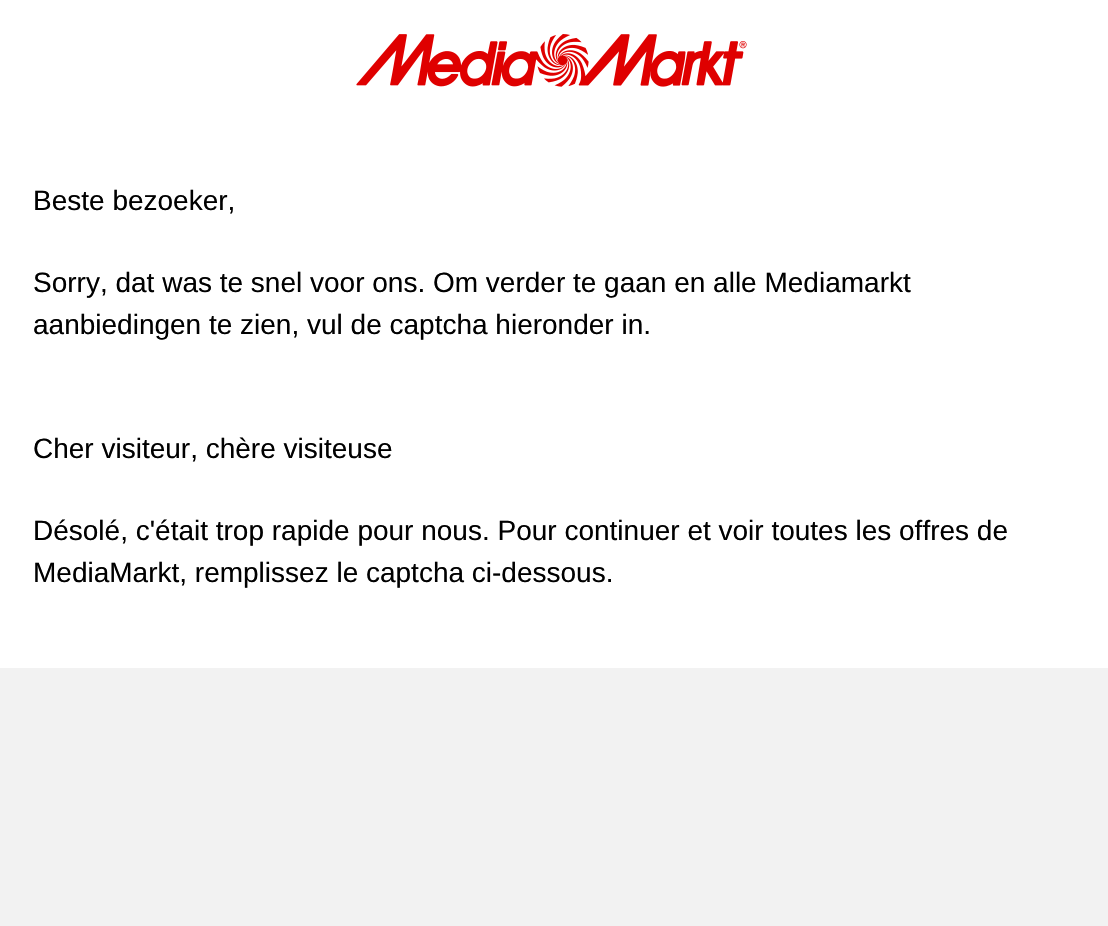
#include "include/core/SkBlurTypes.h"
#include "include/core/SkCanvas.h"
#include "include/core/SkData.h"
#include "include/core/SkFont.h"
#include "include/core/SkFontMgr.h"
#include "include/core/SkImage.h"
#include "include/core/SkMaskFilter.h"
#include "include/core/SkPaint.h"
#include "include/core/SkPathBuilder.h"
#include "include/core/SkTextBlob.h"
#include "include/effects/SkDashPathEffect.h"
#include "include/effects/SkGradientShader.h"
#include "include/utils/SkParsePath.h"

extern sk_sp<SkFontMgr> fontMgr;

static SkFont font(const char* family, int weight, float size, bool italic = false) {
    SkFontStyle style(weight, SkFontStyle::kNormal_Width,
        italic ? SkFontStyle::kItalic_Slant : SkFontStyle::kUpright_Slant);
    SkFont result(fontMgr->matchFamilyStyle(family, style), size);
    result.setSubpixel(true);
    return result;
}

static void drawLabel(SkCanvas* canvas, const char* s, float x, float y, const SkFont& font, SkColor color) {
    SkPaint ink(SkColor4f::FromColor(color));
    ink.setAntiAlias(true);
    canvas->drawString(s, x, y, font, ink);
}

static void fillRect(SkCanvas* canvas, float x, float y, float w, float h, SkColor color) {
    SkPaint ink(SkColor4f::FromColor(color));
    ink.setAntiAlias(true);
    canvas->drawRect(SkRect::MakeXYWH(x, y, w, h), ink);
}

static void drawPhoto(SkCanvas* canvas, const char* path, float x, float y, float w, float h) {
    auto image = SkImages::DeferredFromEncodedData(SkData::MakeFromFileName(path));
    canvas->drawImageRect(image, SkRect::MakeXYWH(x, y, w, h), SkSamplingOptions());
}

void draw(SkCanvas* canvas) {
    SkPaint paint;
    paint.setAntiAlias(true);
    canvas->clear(0xFFF2F2F2);
    fillRect(canvas, 0, 0, 1108, 668, 0xFFFFFFFF);
    drawPhoto(canvas, "assets/img1.png", 356, 34, 391, 53);
    SkFont font1 = font("Liberation Sans", 400, 28);
    drawLabel(canvas, "Beste bezoeker,", 33, 210, font1, 0xFF000000);
    drawLabel(canvas, "Sorry, dat was te snel voor ons. Om verder te gaan en alle Mediamarkt", 33, 292, font1, 0xFF000000);
    drawLabel(canvas, "aanbiedingen te zien, vul de captcha hieronder in.", 33, 334, font1, 0xFF000000);
    drawLabel(canvas, "Cher visiteur, chère visiteuse", 33, 458, font1, 0xFF000000);
    drawLabel(canvas, "Désolé, c'était trop rapide pour nous. Pour continuer et voir toutes les offres de", 33, 540, font1, 0xFF000000);
    drawLabel(canvas, "MediaMarkt, remplissez le captcha ci-dessous.", 33, 582, font1, 0xFF000000);
}
